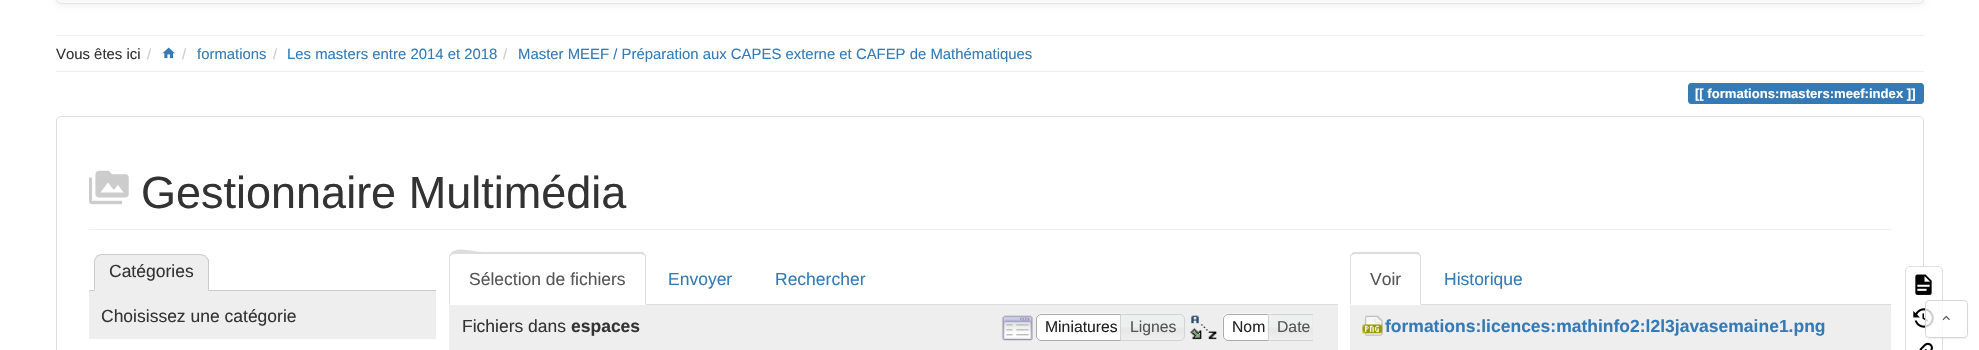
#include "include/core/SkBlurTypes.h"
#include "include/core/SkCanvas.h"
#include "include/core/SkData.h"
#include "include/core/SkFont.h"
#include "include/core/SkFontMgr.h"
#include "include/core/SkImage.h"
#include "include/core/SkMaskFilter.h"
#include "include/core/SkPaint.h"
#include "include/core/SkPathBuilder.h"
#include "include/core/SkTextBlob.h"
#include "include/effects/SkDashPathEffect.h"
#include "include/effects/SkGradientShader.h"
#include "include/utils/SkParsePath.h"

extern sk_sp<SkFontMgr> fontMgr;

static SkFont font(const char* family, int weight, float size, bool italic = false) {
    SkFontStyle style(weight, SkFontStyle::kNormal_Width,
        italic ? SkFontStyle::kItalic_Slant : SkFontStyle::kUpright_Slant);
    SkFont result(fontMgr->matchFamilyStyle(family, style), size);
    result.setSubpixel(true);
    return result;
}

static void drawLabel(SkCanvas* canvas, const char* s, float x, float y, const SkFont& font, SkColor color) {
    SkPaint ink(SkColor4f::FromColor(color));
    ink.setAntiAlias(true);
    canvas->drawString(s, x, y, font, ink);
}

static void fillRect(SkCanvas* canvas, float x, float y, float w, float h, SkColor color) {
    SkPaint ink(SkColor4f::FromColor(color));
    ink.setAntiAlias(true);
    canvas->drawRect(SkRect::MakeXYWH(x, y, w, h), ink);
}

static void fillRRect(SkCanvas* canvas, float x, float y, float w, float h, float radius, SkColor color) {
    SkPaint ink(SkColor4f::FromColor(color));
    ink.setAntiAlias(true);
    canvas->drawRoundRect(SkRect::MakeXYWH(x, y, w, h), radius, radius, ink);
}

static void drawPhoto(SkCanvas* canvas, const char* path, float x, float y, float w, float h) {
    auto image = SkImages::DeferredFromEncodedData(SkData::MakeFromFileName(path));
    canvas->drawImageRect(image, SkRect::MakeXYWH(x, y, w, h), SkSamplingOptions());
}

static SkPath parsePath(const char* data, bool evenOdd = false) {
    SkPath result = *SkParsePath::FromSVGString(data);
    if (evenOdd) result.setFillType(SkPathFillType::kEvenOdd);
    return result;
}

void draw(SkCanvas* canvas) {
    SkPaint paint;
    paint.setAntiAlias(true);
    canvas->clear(0xFFFFFFFF);
    paint.setColor(0x12000000);
    paint.setMaskFilter(SkMaskFilter::MakeBlur(kNormal_SkBlurStyle, 3));
    canvas->drawRoundRect(SkRect::MakeXYWH(56, -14, 1868, 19), 5, 5, paint);
    paint.setMaskFilter(nullptr);
    paint.setColor(0xFFF8F8F8);
    canvas->drawRoundRect(SkRect::MakeXYWH(56.5f, -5.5f, 1867, 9), 4.5f, 4.5f, paint);
    paint.setStroke(true);
    paint.setStrokeWidth(1);
    paint.setColor(0xFFE7E7E7);
    canvas->drawRoundRect(SkRect::MakeXYWH(56.5f, -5.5f, 1867, 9), 4.5f, 4.5f, paint);
    fillRect(canvas, 56, 35, 1868, 1, 0xFFEEEEEE);
    SkFont font1 = font("Liberation Sans", 400, 14.9f);
    drawLabel(canvas, "Vous êtes ici", 56, 59, font1, 0xFF333333);
    drawLabel(canvas, "/", 147, 59, font1, 0xFFCCCCCC);
    drawPhoto(canvas, "assets/img1.png", 162, 47, 13, 12);
    drawLabel(canvas, "/", 182, 59, font1, 0xFFCCCCCC);
    drawLabel(canvas, "formations", 197, 59, font1, 0xFF337AB7);
    drawLabel(canvas, "/", 273, 59, font1, 0xFFCCCCCC);
    drawLabel(canvas, "Les masters entre 2014 et 2018", 287, 59, font1, 0xFF337AB7);
    drawLabel(canvas, "/", 503, 59, font1, 0xFFCCCCCC);
    drawLabel(canvas, "Master MEEF / Préparation aux CAPES externe et CAFEP de Mathématiques", 518, 59, font1, 0xFF337AB7);
    fillRect(canvas, 56, 71, 1868, 1, 0xFFEEEEEE);
    paint.setStroke(false);
    paint.setColor(0xFF337AB7);
    canvas->drawPath(parsePath("M1691 83H1708V104H1691C1689.5 104 1688 102.5 1688 101V86C1688 84.5 1689.5 83 1691 83Z"), paint);
    fillRect(canvas, 1708, 83, 196, 21, 0xFF337AB7);
    canvas->drawPath(parsePath("M1904 83H1921C1922.5 83 1924 84.5 1924 86V101C1924 102.5 1922.5 104 1921 104H1904Z"), paint);
    SkFont font2 = font("Liberation Sans", 700, 13.1f);
    drawLabel(canvas, "[[ formations:masters:meef:index ]]", 1695, 98, font2, 0xFFFFFFFF);
    paint.setStroke(true);
    paint.setColor(0xFFDDDDDD);
    canvas->drawRoundRect(SkRect::MakeXYWH(56.5f, 116.5f, 1867, 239), 4.5f, 4.5f, paint);
    fillRect(canvas, 89, 229, 1802, 1, 0xFFEEEEEE);
    drawPhoto(canvas, "assets/img2.png", 89, 170, 40, 35);
    SkFont font3 = font("Liberation Sans", 400, 45);
    drawLabel(canvas, "Gestionnaire Multimédia", 141, 208, font3, 0xFF333333);
    fillRect(canvas, 89, 290, 347, 1, 0xFFCCCCCC);
    paint.setStroke(false);
    paint.setColor(0xFFEEEEEE);
    canvas->drawPath(parsePath("M103 254H200C205 254 209 258 209 263V291H94V263C94 258 98 254 103 254Z"), paint);
    paint.setColor(0xFFCCCCCC);
    canvas->drawPath(parsePath("M102 254C100 254 98 255 96 256L97 257C98 256 100 255 102 255H200C202 255 204 256 206 257V256C205 255 202 254 200 254Z"), paint);
    canvas->drawPath(parsePath("M206 256.5C207.5 257.5 208.5 259 209 260V291L207.5 290H208V262C208 260 207 258 205.5 257Z"), paint);
    paint.setColor(0xFFEEEEEE);
    canvas->drawPath(parsePath("M208 291H94L95 290H208Z"), paint);
    paint.setColor(0xFFCCCCCC);
    canvas->drawPath(parsePath("M96.5 256.5C95 258 94 260 94 262V291L95 290V262C95 260 96 258 97 257Z"), paint);
    SkFont font4 = font("Liberation Sans", 400, 17.5f);
    drawLabel(canvas, "Catégories", 109, 277, font4, 0xFF333333);
    fillRect(canvas, 89, 291, 347, 48, 0xFFEEEEEE);
    drawLabel(canvas, "Choisissez une catégorie", 101, 322, font4, 0xFF333333);
    fillRect(canvas, 646, 304, 692, 1, 0xFFDDDDDD);
    paint.setColor(0xFFDDDDDD);
    canvas->drawPath(parsePath("M454 254L451 255L450 254C457 245 472 252 484 252H643L645 254L644 255L641 254Z"), paint);
    canvas->drawPath(parsePath("M645 254C646 255 646 257 646 258V305L645 304V257L644 255Z"), paint);
    canvas->drawPath(parsePath("M449 305V258C449 257 449 255 450 254L451 255L450 257V304Z"), paint);
    drawLabel(canvas, "Sélection de fichiers", 469, 285, font4, 0xFF555555);
    drawLabel(canvas, "Envoyer", 668, 285, font4, 0xFF337AB7);
    drawLabel(canvas, "Rechercher", 775, 285, font4, 0xFF337AB7);
    fillRect(canvas, 449, 305, 889, 45, 0xFFEEEEEE);
    drawLabel(canvas, "Fichiers dans", 462, 332, font4, 0xFF333333);
    SkFont font5 = font("Liberation Sans", 700, 17.5f);
    drawLabel(canvas, "espaces", 571, 332, font5, 0xFF333333);
    drawPhoto(canvas, "assets/img3.png", 1002, 315, 31, 26);
    paint.setColor(0xFFFFFFFF);
    canvas->drawPath(parsePath("M1041 314H1126V341H1041C1038 341 1036 339 1036 336V319C1036 316 1038 314 1041 314Z"), paint);
    drawPhoto(canvas, "assets/img4.png", 1037, 313, 89, 3);
    paint.setStroke(true);
    paint.setColor(0xFFAAAAAA);
    canvas->drawPath(parsePath("M1041 314.5H1125.5V340.5H1041C1038.5 340.5 1036.5 338.5 1036.5 336V319C1036.5 316.5 1038.5 314.5 1041 314.5Z"), paint);
    SkFont font6 = font("Liberation Sans", 400, 15.75f);
    drawLabel(canvas, "Miniatures", 1045, 332, font6, 0xFF212121);
    drawPhoto(canvas, "assets/img5.png", 1121, 314, 64, 26);
    paint.setColor(0xFFD3D3D3);
    canvas->drawPath(parsePath("M1120.5 314.5H1180C1182.5 314.5 1184.5 316.5 1184.5 319V336C1184.5 338.5 1182.5 340.5 1180 340.5H1120.5Z"), paint);
    drawLabel(canvas, "Lignes", 1130, 332, font6, 0xFF555555);
    drawPhoto(canvas, "assets/img6.png", 1190, 315, 27, 25);
    drawPhoto(canvas, "assets/img7.png", 1222, 313, 51, 27);
    paint.setColor(0xFFAAAAAA);
    canvas->drawPath(parsePath("M1228 314.5H1273.5V340.5H1228C1225.5 340.5 1223.5 338.5 1223.5 336V319C1223.5 316.5 1225.5 314.5 1228 314.5Z"), paint);
    drawLabel(canvas, "Nom", 1232, 332, font6, 0xFF212121);
    fillRect(canvas, 1312, 315, 1, 25, 0xFFE6E6E6);
    drawPhoto(canvas, "assets/img8.png", 1267, 314, 46, 27);
    canvas->save();
    canvas->clipRect(SkRect::MakeXYWH(993, 314, 320, 27));
    paint.setColor(0xFFD3D3D3);
    canvas->drawPath(parsePath("M1268.5 314.5H1314C1316.5 314.5 1318.5 316.5 1318.5 319V336C1318.5 338.5 1316.5 340.5 1314 340.5H1268.5Z"), paint);
    canvas->restore();
    drawLabel(canvas, "Date", 1277, 332, font6, 0xFF555555);
    fillRect(canvas, 1421, 304, 470, 1, 0xFFDDDDDD);
    paint.setStroke(false);
    paint.setColor(0xFFDDDDDD);
    canvas->drawPath(parsePath("M1355 254L1352 255L1351 254L1353 252H1418L1420 254L1419 255L1416 254Z"), paint);
    canvas->drawPath(parsePath("M1420 254C1421 255 1421 257 1421 258V305L1420 304V257L1419 255Z"), paint);
    canvas->drawPath(parsePath("M1350 305L1351 304V257L1352 255L1351 254C1350 255 1350 256 1350 258Z"), paint);
    drawLabel(canvas, "Voir", 1370, 285, font4, 0xFF555555);
    drawLabel(canvas, "Historique", 1444, 285, font4, 0xFF337AB7);
    fillRect(canvas, 1350, 305, 541, 45, 0xFFEEEEEE);
    drawPhoto(canvas, "assets/img9.png", 1362, 315, 21, 21);
    drawLabel(canvas, "formations:licences:mathinfo2:l2l3javasemaine1.png", 1385, 332, font5, 0xFF337AB7);
    paint.setColor(0xFFFFFFFF);
    canvas->drawRoundRect(SkRect::MakeXYWH(1905.5f, 266.5f, 37, 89), 4.5f, 4.5f, paint);
    paint.setStroke(true);
    paint.setColor(0xFFDDDDDD);
    canvas->drawRoundRect(SkRect::MakeXYWH(1905.5f, 266.5f, 37, 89), 4.5f, 4.5f, paint);
    drawPhoto(canvas, "assets/img10.png", 1915, 274, 17, 21);
    drawPhoto(canvas, "assets/img11.png", 1913, 308, 21, 20);
    drawPhoto(canvas, "assets/img12.png", 1919, 342, 14, 8);
    canvas->save();
    canvas->clipPath(parsePath("M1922 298H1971V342H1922ZM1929 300H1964C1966 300 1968 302 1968 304V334C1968 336 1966 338 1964 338H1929C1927 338 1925 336 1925 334V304C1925 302 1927 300 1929 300Z", true), true);
    paint.setStroke(false);
    paint.setColor(0x0F000000);
    paint.setMaskFilter(SkMaskFilter::MakeBlur(kNormal_SkBlurStyle, 0.5f));
    canvas->drawRoundRect(SkRect::MakeXYWH(1925, 301, 43, 38), 4, 4, paint);
    paint.setMaskFilter(nullptr);
    canvas->restore();
    fillRRect(canvas, 1925, 300, 43, 38, 4, 0xCCFFFFFF);
    paint.setStroke(true);
    paint.setColor(0xCCCCCCCC);
    canvas->drawRoundRect(SkRect::MakeXYWH(1925.5f, 300.5f, 42, 37), 3.5f, 3.5f, paint);
    drawPhoto(canvas, "assets/img13.png", 1942, 315, 8, 6);
}
